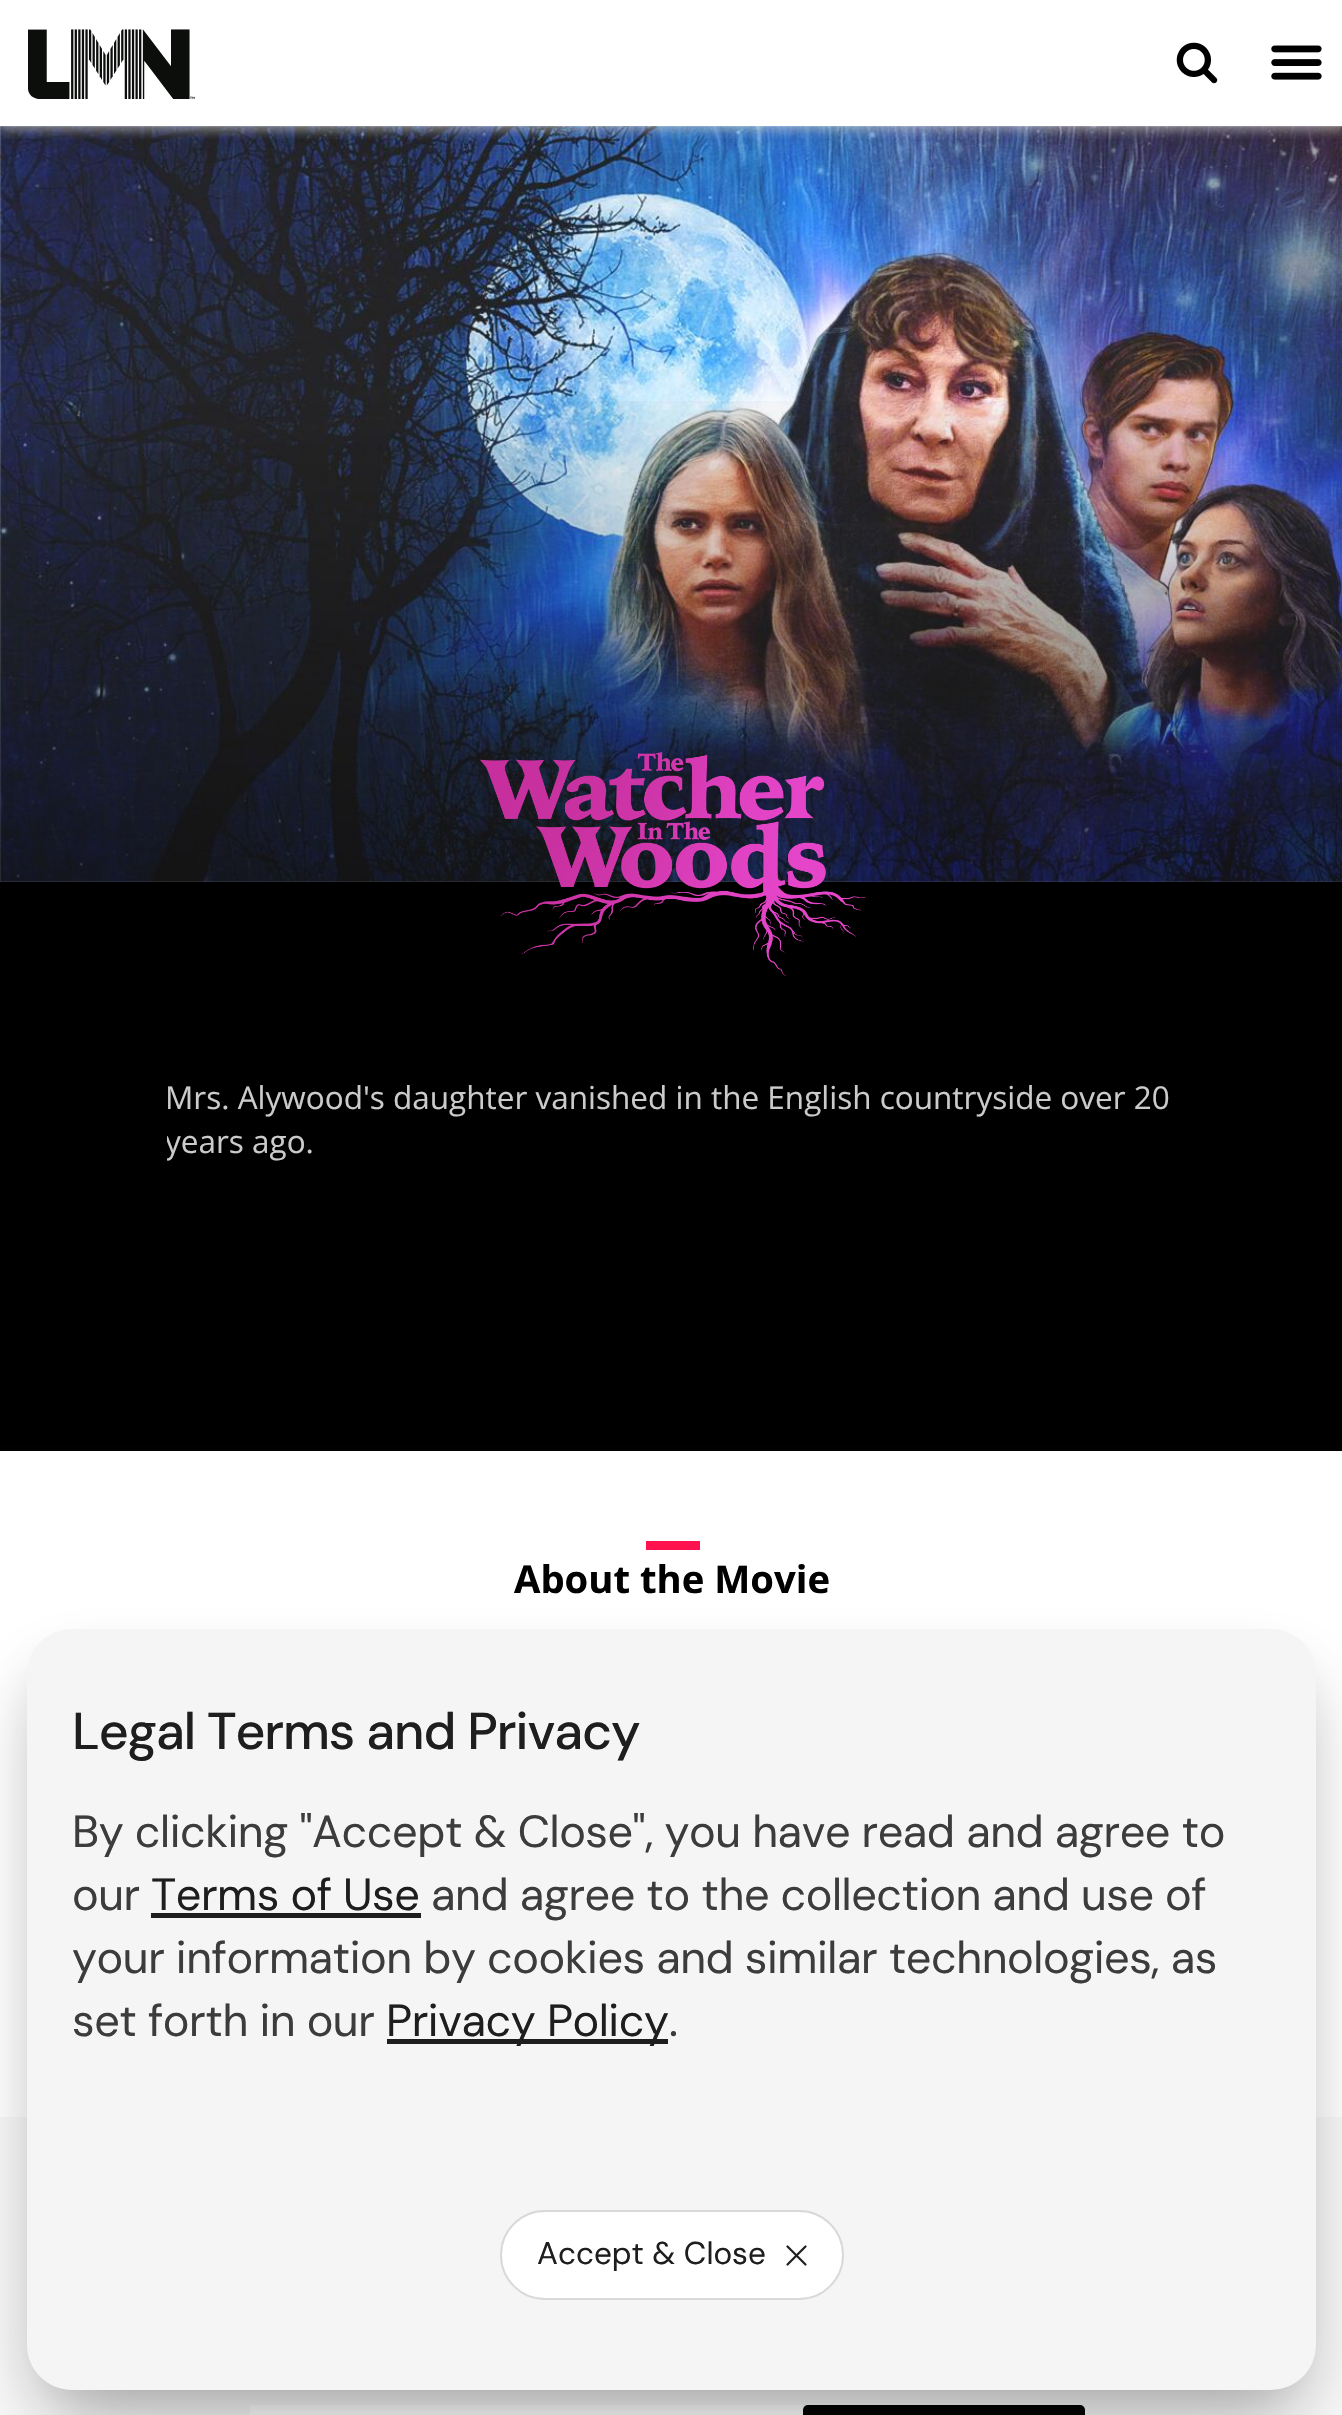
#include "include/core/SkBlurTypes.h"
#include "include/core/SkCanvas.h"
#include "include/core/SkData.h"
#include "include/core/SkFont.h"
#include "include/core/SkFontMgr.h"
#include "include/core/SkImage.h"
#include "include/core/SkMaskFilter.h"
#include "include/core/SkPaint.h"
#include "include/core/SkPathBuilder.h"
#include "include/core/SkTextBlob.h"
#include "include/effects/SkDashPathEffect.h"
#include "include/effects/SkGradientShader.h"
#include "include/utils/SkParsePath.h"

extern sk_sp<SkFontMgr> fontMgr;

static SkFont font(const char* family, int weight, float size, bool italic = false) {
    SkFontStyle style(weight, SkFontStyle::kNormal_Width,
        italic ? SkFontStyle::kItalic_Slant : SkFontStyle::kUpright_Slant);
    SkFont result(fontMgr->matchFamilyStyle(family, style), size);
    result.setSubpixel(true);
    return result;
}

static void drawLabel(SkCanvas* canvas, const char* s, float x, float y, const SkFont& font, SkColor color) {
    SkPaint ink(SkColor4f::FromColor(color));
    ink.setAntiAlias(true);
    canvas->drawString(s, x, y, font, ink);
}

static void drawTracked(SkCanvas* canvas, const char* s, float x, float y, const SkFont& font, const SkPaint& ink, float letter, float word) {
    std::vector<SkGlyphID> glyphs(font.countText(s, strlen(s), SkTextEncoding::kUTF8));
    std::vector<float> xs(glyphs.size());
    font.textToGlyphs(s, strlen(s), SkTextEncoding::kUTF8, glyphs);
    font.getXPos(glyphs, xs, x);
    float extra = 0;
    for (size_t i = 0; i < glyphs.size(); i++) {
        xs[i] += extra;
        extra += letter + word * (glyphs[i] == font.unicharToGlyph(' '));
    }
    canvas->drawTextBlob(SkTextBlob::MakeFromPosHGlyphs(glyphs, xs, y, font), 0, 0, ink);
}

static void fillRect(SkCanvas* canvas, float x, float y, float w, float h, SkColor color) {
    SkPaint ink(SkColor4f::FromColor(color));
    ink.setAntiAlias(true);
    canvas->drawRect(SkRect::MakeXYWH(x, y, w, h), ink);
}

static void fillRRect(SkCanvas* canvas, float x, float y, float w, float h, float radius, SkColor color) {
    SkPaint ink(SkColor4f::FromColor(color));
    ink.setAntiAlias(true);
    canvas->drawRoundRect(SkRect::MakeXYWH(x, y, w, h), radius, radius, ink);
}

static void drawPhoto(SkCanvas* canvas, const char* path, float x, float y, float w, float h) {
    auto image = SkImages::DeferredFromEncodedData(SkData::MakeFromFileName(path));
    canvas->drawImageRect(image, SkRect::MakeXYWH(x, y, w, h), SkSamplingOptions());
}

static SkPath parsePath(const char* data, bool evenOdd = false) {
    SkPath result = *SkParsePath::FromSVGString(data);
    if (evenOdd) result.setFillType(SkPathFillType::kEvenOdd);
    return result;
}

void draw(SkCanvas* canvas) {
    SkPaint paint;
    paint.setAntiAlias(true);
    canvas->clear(0xFFFFFFFF);
    drawPhoto(canvas, "assets/img4.png", 0, 126, 1342, 756);
    canvas->save();
    canvas->clipRect(SkRect::MakeXYWH(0, 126, 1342, 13));
    paint.setColor(0x80D8D8D8);
    paint.setMaskFilter(SkMaskFilter::MakeBlur(kNormal_SkBlurStyle, 4.5f));
    canvas->drawRect(SkRect::MakeXYWH(0, 5, 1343, 126), paint);
    paint.setMaskFilter(nullptr);
    canvas->restore();
    drawPhoto(canvas, "assets/img1.png", 28, 29, 167, 70);
    drawPhoto(canvas, "assets/img2.png", 1176, 42, 42, 42);
    drawPhoto(canvas, "assets/img3.png", 1271, 45, 51, 35);
    fillRect(canvas, 0, 882, 1342, 563, 0xFF000000);
    {
        const SkColor colors[] = {0xFF000000, 0x00000000};
        const float stops[] = {0, 0.81f};
        const SkPoint ends[] = {{672, 1451}, {672, 126}};
        paint.setShader(SkGradientShader::MakeLinear(ends, colors, stops, 2, SkTileMode::kClamp));
        paint.setAlpha(255);
    }
    canvas->drawRect(SkRect::MakeXYWH(0, 401, 1342, 1050), paint);
    drawPhoto(canvas, "assets/img5.png", 480, 752, 386, 225);
    SkFont font1 = font("Open Sans", 400, 31.5f);
    drawLabel(canvas, "Mrs. Alywood's daughter vanished in the English countryside over 20", 165, 1109, font1, 0xFFCBCBCB);
    canvas->save();
    canvas->clipRect(SkRect::MakeXYWH(167, 1076, 1012, 87));
    drawLabel(canvas, "years ago.", 165, 1153, font1, 0xFFCBCBCB);
    canvas->restore();
    fillRect(canvas, 646, 1541, 54, 9, 0xFFFF124D);
    SkFont font2 = font("Open Sans", 700, 38.25f);
    drawLabel(canvas, "About the Movie", 514, 1593, font2, 0xFF000000);
    fillRect(canvas, 0, 2117, 1342, 298, 0xFFF8F8F8);
    fillRect(canvas, 250, 2405, 553, 10, 0xFFFFFFFF);
    fillRRect(canvas, 803, 2405, 282, 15, 5, 0xFF000000);
    paint.setShader(nullptr);
    paint.setColor(0x660C0C0D);
    paint.setMaskFilter(SkMaskFilter::MakeBlur(kNormal_SkBlurStyle, 36));
    canvas->drawRoundRect(SkRect::MakeXYWH(45, 1683, 1253, 725), 27, 27, paint);
    paint.setMaskFilter(nullptr);
    fillRRect(canvas, 27, 1629, 1289, 761, 45, 0xFFF5F5F5);
    SkFont font3 = font("DM Sans", 500, 51.75f);
    paint.setColor(0xFF1E1E1E);
    drawTracked(canvas, "Legal Terms and Privacy", 72, 1749, font3, paint, -1.1f, 0);
    SkFont font4 = font("DM Sans", 400, 45);
    paint.setColor(0xFF3C3C3C);
    drawTracked(canvas, "By clicking \"Accept & Close\", you have read and agree to", 72, 1847, font4, paint, -0.45f, 0);
    drawTracked(canvas, "our", 72, 1910, font4, paint, -0.45f, 0);
    paint.setColor(0xFF1E1E1E);
    drawTracked(canvas, "Terms of Use", 151, 1910, font4, paint, -0.45f, 0);
    fillRect(canvas, 151, 1913, 270, 5, 0xFF1E1E1E);
    paint.setColor(0xFF3C3C3C);
    drawTracked(canvas, "and agree to the collection and use of", 431, 1910, font4, paint, -0.45f, 0);
    drawTracked(canvas, "your information by cookies and similar technologies, as", 72, 1973, font4, paint, -0.45f, 0);
    drawTracked(canvas, "set forth in our", 72, 2036, font4, paint, -0.45f, 0);
    fillRect(canvas, 387, 2039, 281, 5, 0xFF1E1E1E);
    paint.setColor(0xFF1E1E1E);
    drawTracked(canvas, "Privacy Policy", 386, 2036, font4, paint, -0.45f, 0);
    paint.setColor(0xFF3C3C3C);
    drawTracked(canvas, ".", 669, 2036, font4, paint, -0.45f, 0);
    paint.setColor(0xFFFFFFFF);
    canvas->drawRoundRect(SkRect::MakeXYWH(501, 2211, 342, 88), 44, 44, paint);
    paint.setStroke(true);
    paint.setStrokeWidth(2);
    paint.setColor(0xFFD9D9D9);
    canvas->drawRoundRect(SkRect::MakeXYWH(501, 2211, 342, 88), 44, 44, paint);
    SkFont font5 = font("DM Sans", 400, 31.5f);
    drawLabel(canvas, "Accept & Close", 537, 2264, font5, 0xFF1E1E1E);
    paint.setStrokeWidth(2.2f);
    paint.setStrokeCap(SkPaint::kRound_Cap);
    paint.setStrokeJoin(SkPaint::kRound_Join);
    paint.setColor(0xFF1E1E1E);
    canvas->drawPath(parsePath("M805.5 2246.5L787.5 2264.5M787.5 2246.5L805.5 2264.5"), paint);
}
